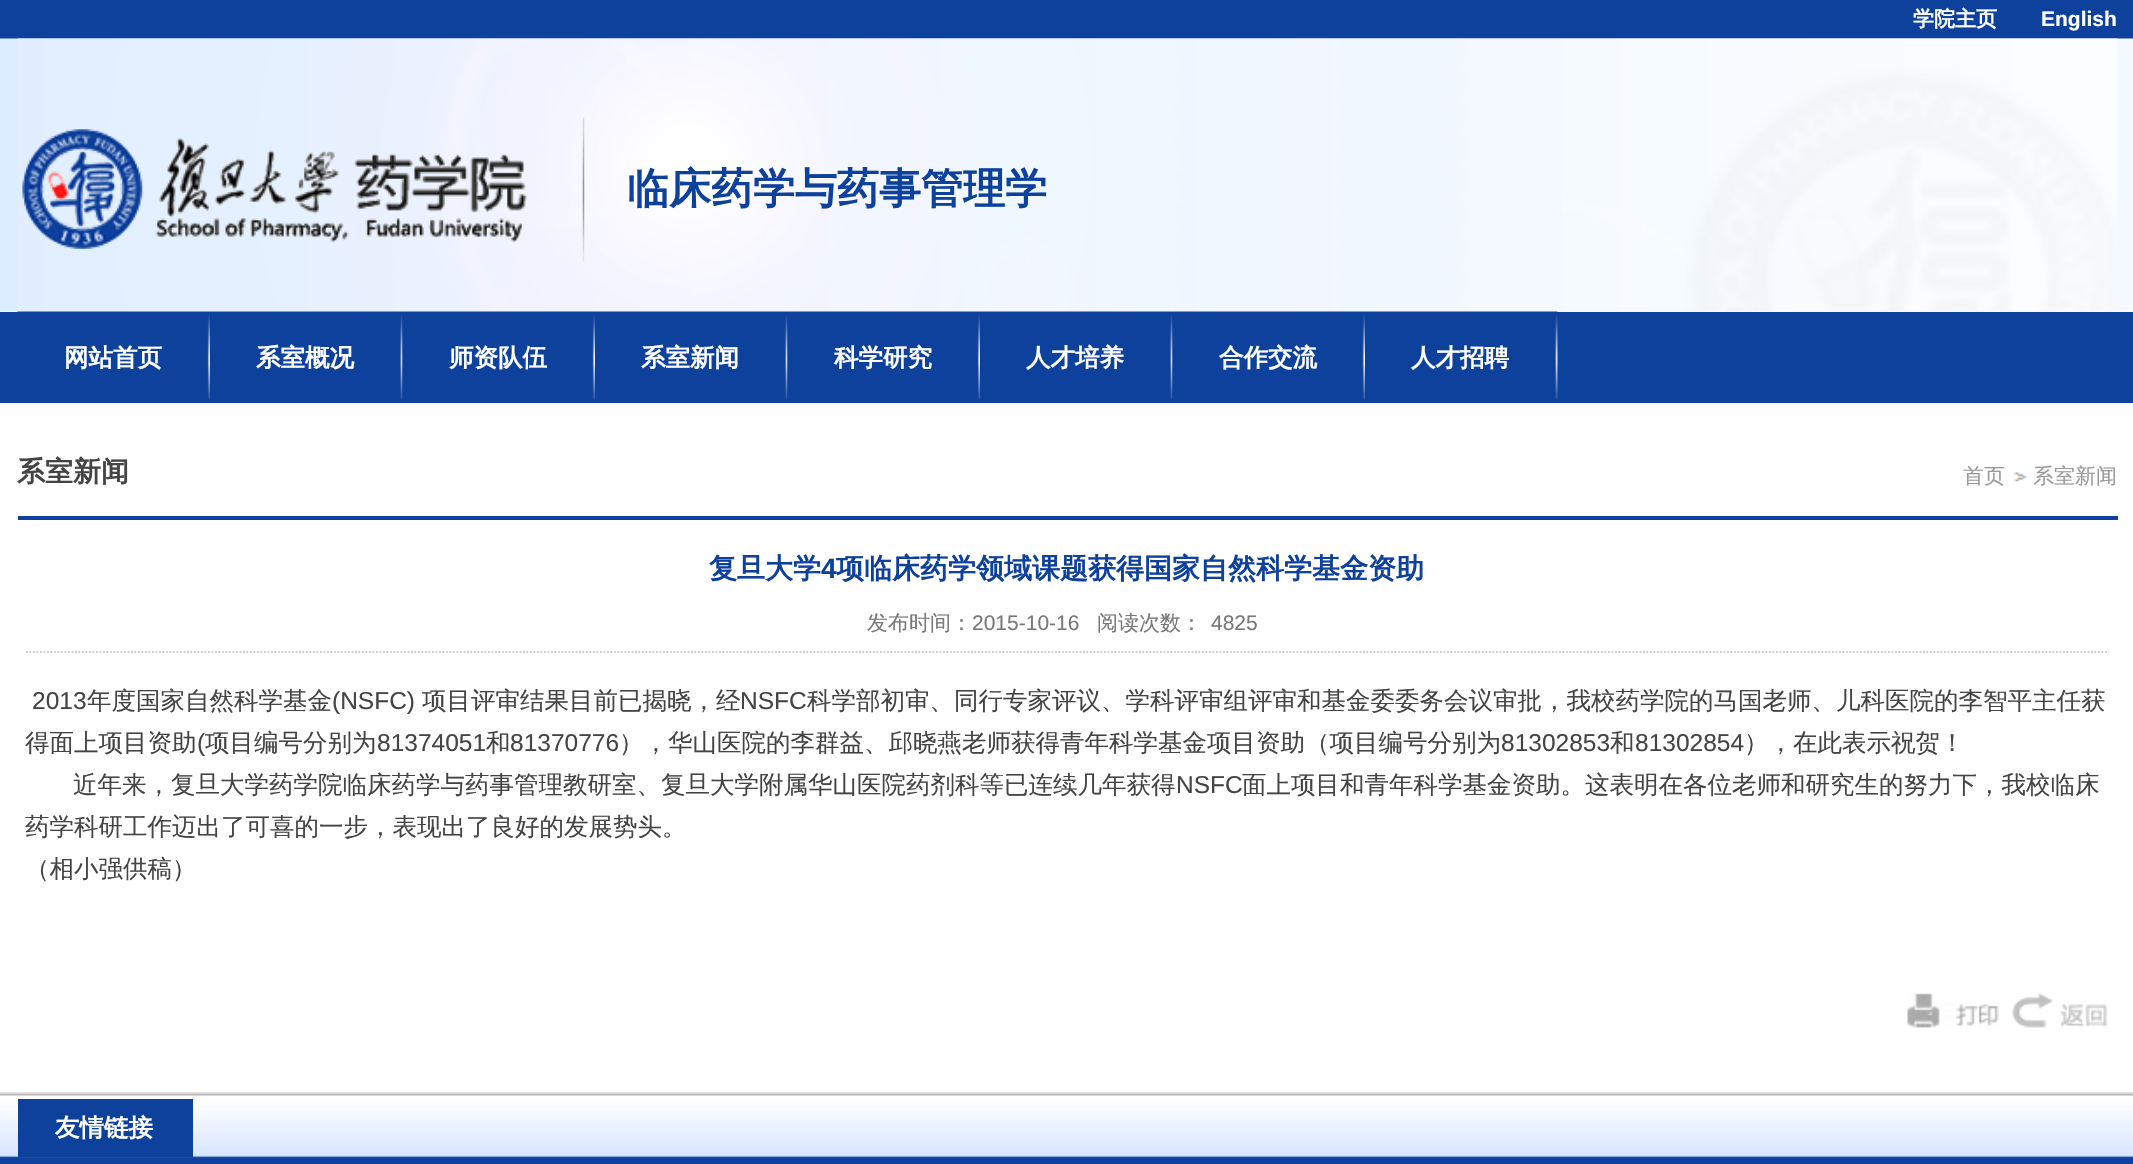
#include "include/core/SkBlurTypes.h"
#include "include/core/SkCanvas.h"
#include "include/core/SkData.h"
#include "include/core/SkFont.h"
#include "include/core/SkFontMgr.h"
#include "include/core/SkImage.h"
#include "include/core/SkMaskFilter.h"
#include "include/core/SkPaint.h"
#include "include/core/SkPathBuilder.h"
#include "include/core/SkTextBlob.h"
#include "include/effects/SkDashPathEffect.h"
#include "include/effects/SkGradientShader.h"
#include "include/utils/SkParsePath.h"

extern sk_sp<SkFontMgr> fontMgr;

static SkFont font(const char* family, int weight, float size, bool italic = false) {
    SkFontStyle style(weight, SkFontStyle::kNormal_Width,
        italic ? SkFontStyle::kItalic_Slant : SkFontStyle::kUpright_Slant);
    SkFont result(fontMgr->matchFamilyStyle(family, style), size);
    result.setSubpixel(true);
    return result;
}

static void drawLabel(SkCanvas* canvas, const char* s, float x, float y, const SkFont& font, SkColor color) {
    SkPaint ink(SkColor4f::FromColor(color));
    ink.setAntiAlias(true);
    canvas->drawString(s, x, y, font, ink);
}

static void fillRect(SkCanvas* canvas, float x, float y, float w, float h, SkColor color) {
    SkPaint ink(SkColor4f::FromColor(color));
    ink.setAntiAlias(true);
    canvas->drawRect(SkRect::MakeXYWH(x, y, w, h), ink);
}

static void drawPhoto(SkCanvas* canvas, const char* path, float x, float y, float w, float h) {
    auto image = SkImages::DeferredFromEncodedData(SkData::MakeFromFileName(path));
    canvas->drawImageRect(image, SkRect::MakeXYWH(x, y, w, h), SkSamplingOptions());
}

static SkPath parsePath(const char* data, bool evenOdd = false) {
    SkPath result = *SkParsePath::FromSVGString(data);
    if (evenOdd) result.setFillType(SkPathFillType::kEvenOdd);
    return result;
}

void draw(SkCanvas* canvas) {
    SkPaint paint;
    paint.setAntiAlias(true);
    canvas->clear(0xFFFFFFFF);
    fillRect(canvas, 0, 0, 2133, 39, 0xFF0E419C);
    SkFont font1 = font("WenQuanYi Zen Hei", 700, 21);
    drawLabel(canvas, "学院主页", 1913, 26, font1, 0xFFFFFFFF);
    SkFont font2 = font("Liberation Sans", 700, 21);
    drawLabel(canvas, "English", 2041, 26, font2, 0xFFFFFFFF);
    drawPhoto(canvas, "assets/img1.png", 0, 38, 2133, 274);
    drawPhoto(canvas, "assets/img2.png", 17, 38, 2101, 274);
    drawPhoto(canvas, "assets/img3.png", 22, 116, 563, 147);
    drawPhoto(canvas, "assets/img4.png", 22, 129, 505, 120);
    SkFont font3 = font("WenQuanYi Zen Hei", 700, 42);
    drawLabel(canvas, "临床药学与药事管理学", 627, 203, font3, 0xFF0E419C);
    fillRect(canvas, 0, 312, 2133, 91, 0xFF0E419C);
    drawPhoto(canvas, "assets/img5.png", 17, 311, 193, 89);
    SkFont font4 = font("WenQuanYi Zen Hei", 700, 24.5f);
    drawLabel(canvas, "网站首页", 64, 366, font4, 0xFFFFFFFF);
    drawPhoto(canvas, "assets/img6.png", 210, 311, 193, 89);
    drawLabel(canvas, "系室概况", 256, 366, font4, 0xFFFFFFFF);
    drawPhoto(canvas, "assets/img7.png", 402, 311, 193, 89);
    drawLabel(canvas, "师资队伍", 449, 366, font4, 0xFFFFFFFF);
    drawPhoto(canvas, "assets/img8.png", 595, 311, 193, 89);
    drawLabel(canvas, "系室新闻", 641, 366, font4, 0xFFFFFFFF);
    drawPhoto(canvas, "assets/img9.png", 787, 311, 193, 89);
    drawLabel(canvas, "科学研究", 834, 366, font4, 0xFFFFFFFF);
    drawPhoto(canvas, "assets/img10.png", 980, 311, 193, 89);
    drawLabel(canvas, "人才培养", 1026, 366, font4, 0xFFFFFFFF);
    drawPhoto(canvas, "assets/img11.png", 1172, 311, 193, 89);
    drawLabel(canvas, "合作交流", 1219, 366, font4, 0xFFFFFFFF);
    drawPhoto(canvas, "assets/img12.png", 1365, 311, 193, 89);
    drawLabel(canvas, "人才招聘", 1411, 366, font4, 0xFFFFFFFF);
    fillRect(canvas, 18, 516, 2100, 4, 0xFF0E419C);
    SkFont font5 = font("WenQuanYi Zen Hei", 700, 28);
    drawLabel(canvas, "系室新闻", 17, 481, font5, 0xFF444444);
    SkFont font6 = font("WenQuanYi Zen Hei", 500, 21);
    drawLabel(canvas, "首页", 1963, 483, font6, 0xFF999999);
    drawPhoto(canvas, "assets/img13.png", 2013, 471, 14, 11);
    drawLabel(canvas, "系室新闻", 2033, 483, font6, 0xFF999999);
    drawLabel(canvas, "复旦大学", 709, 578, font5, 0xFF0E419C);
    SkFont font7 = font("Liberation Sans", 700, 28);
    drawLabel(canvas, "4", 821, 578, font7, 0xFF0E419C);
    drawLabel(canvas, "项临床药学领域课题获得国家自然科学基金资助", 836, 578, font5, 0xFF0E419C);
    paint.setStroke(true);
    paint.setStrokeWidth(1.8f);
    paint.setColor(0xFFCCCCCC);
    paint.setPathEffect(SkDashPathEffect::Make({{1.75f, 1.75f}}, 0));
    canvas->drawPath(parsePath("M26 652H2109"), paint);
    paint.setPathEffect(nullptr);
    drawLabel(canvas, "发布时间：", 867, 630, font6, 0xFF787878);
    SkFont font8 = font("Liberation Sans", 400, 21);
    drawLabel(canvas, "2015-10-16", 972, 630, font8, 0xFF787878);
    drawLabel(canvas, "阅读次数：", 1097, 630, font6, 0xFF787878);
    drawLabel(canvas, "4825", 1211, 630, font8, 0xFF787878);
    SkFont font9 = font("Liberation Sans", 400, 24.5f);
    drawLabel(canvas, "2013", 32, 709, font9, 0xFF444444);
    SkFont font10 = font("WenQuanYi Zen Hei", 500, 24.5f);
    drawLabel(canvas, "年度国家自然科学基金", 87, 709, font10, 0xFF444444);
    drawLabel(canvas, "(NSFC)", 332, 709, font9, 0xFF444444);
    drawLabel(canvas, "项目评审结果目前已揭晓，经", 422, 709, font10, 0xFF444444);
    drawLabel(canvas, "NSFC", 740, 709, font9, 0xFF444444);
    drawLabel(canvas, "科学部初审、同行专家评议、学科评审组评审和基金委委务会议审批，我校药学院的马国老师、儿科医院的李智平主任获", 807, 709, font10, 0xFF444444);
    drawLabel(canvas, "得面上项目资助", 25, 751, font10, 0xFF444444);
    drawLabel(canvas, "(", 197, 751, font9, 0xFF444444);
    drawLabel(canvas, "项目编号分别为", 205, 751, font10, 0xFF444444);
    drawLabel(canvas, "81374051", 377, 751, font9, 0xFF444444);
    drawLabel(canvas, "和", 486, 751, font10, 0xFF444444);
    drawLabel(canvas, "81370776", 510, 751, font9, 0xFF444444);
    drawLabel(canvas, "），华山医院的李群益、邱晓燕老师获得青年科学基金项目资助（项目编号分别为", 619, 751, font10, 0xFF444444);
    drawLabel(canvas, "81302853", 1501, 751, font9, 0xFF444444);
    drawLabel(canvas, "和", 1610, 751, font10, 0xFF444444);
    drawLabel(canvas, "81302854", 1635, 751, font9, 0xFF444444);
    drawLabel(canvas, "），在此表示祝贺！", 1744, 751, font10, 0xFF444444);
    drawLabel(canvas, "近年来，复旦大学药学院临床药学与药事管理教研室、复旦大学附属华山医院药剂科等已连续几年获得", 73, 793, font10, 0xFF444444);
    drawLabel(canvas, "NSFC", 1176, 793, font9, 0xFF444444);
    drawLabel(canvas, "面上项目和青年科学基金资助。这表明在各位老师和研究生的努力下，我校临床", 1242, 793, font10, 0xFF444444);
    drawLabel(canvas, "药学科研工作迈出了可喜的一步，表现出了良好的发展势头。", 25, 835, font10, 0xFF444444);
    drawLabel(canvas, "（相小强供稿）", 25, 877, font10, 0xFF444444);
    drawPhoto(canvas, "assets/img14.png", 1907, 993, 92, 36);
    drawPhoto(canvas, "assets/img15.png", 2012, 993, 96, 35);
    drawPhoto(canvas, "assets/img16.png", 0, 1092, 2133, 72);
    fillRect(canvas, 18, 1099, 175, 58, 0xFF0E419C);
    drawLabel(canvas, "友情链接", 55, 1136, font4, 0xFFFFFFFF);
}
